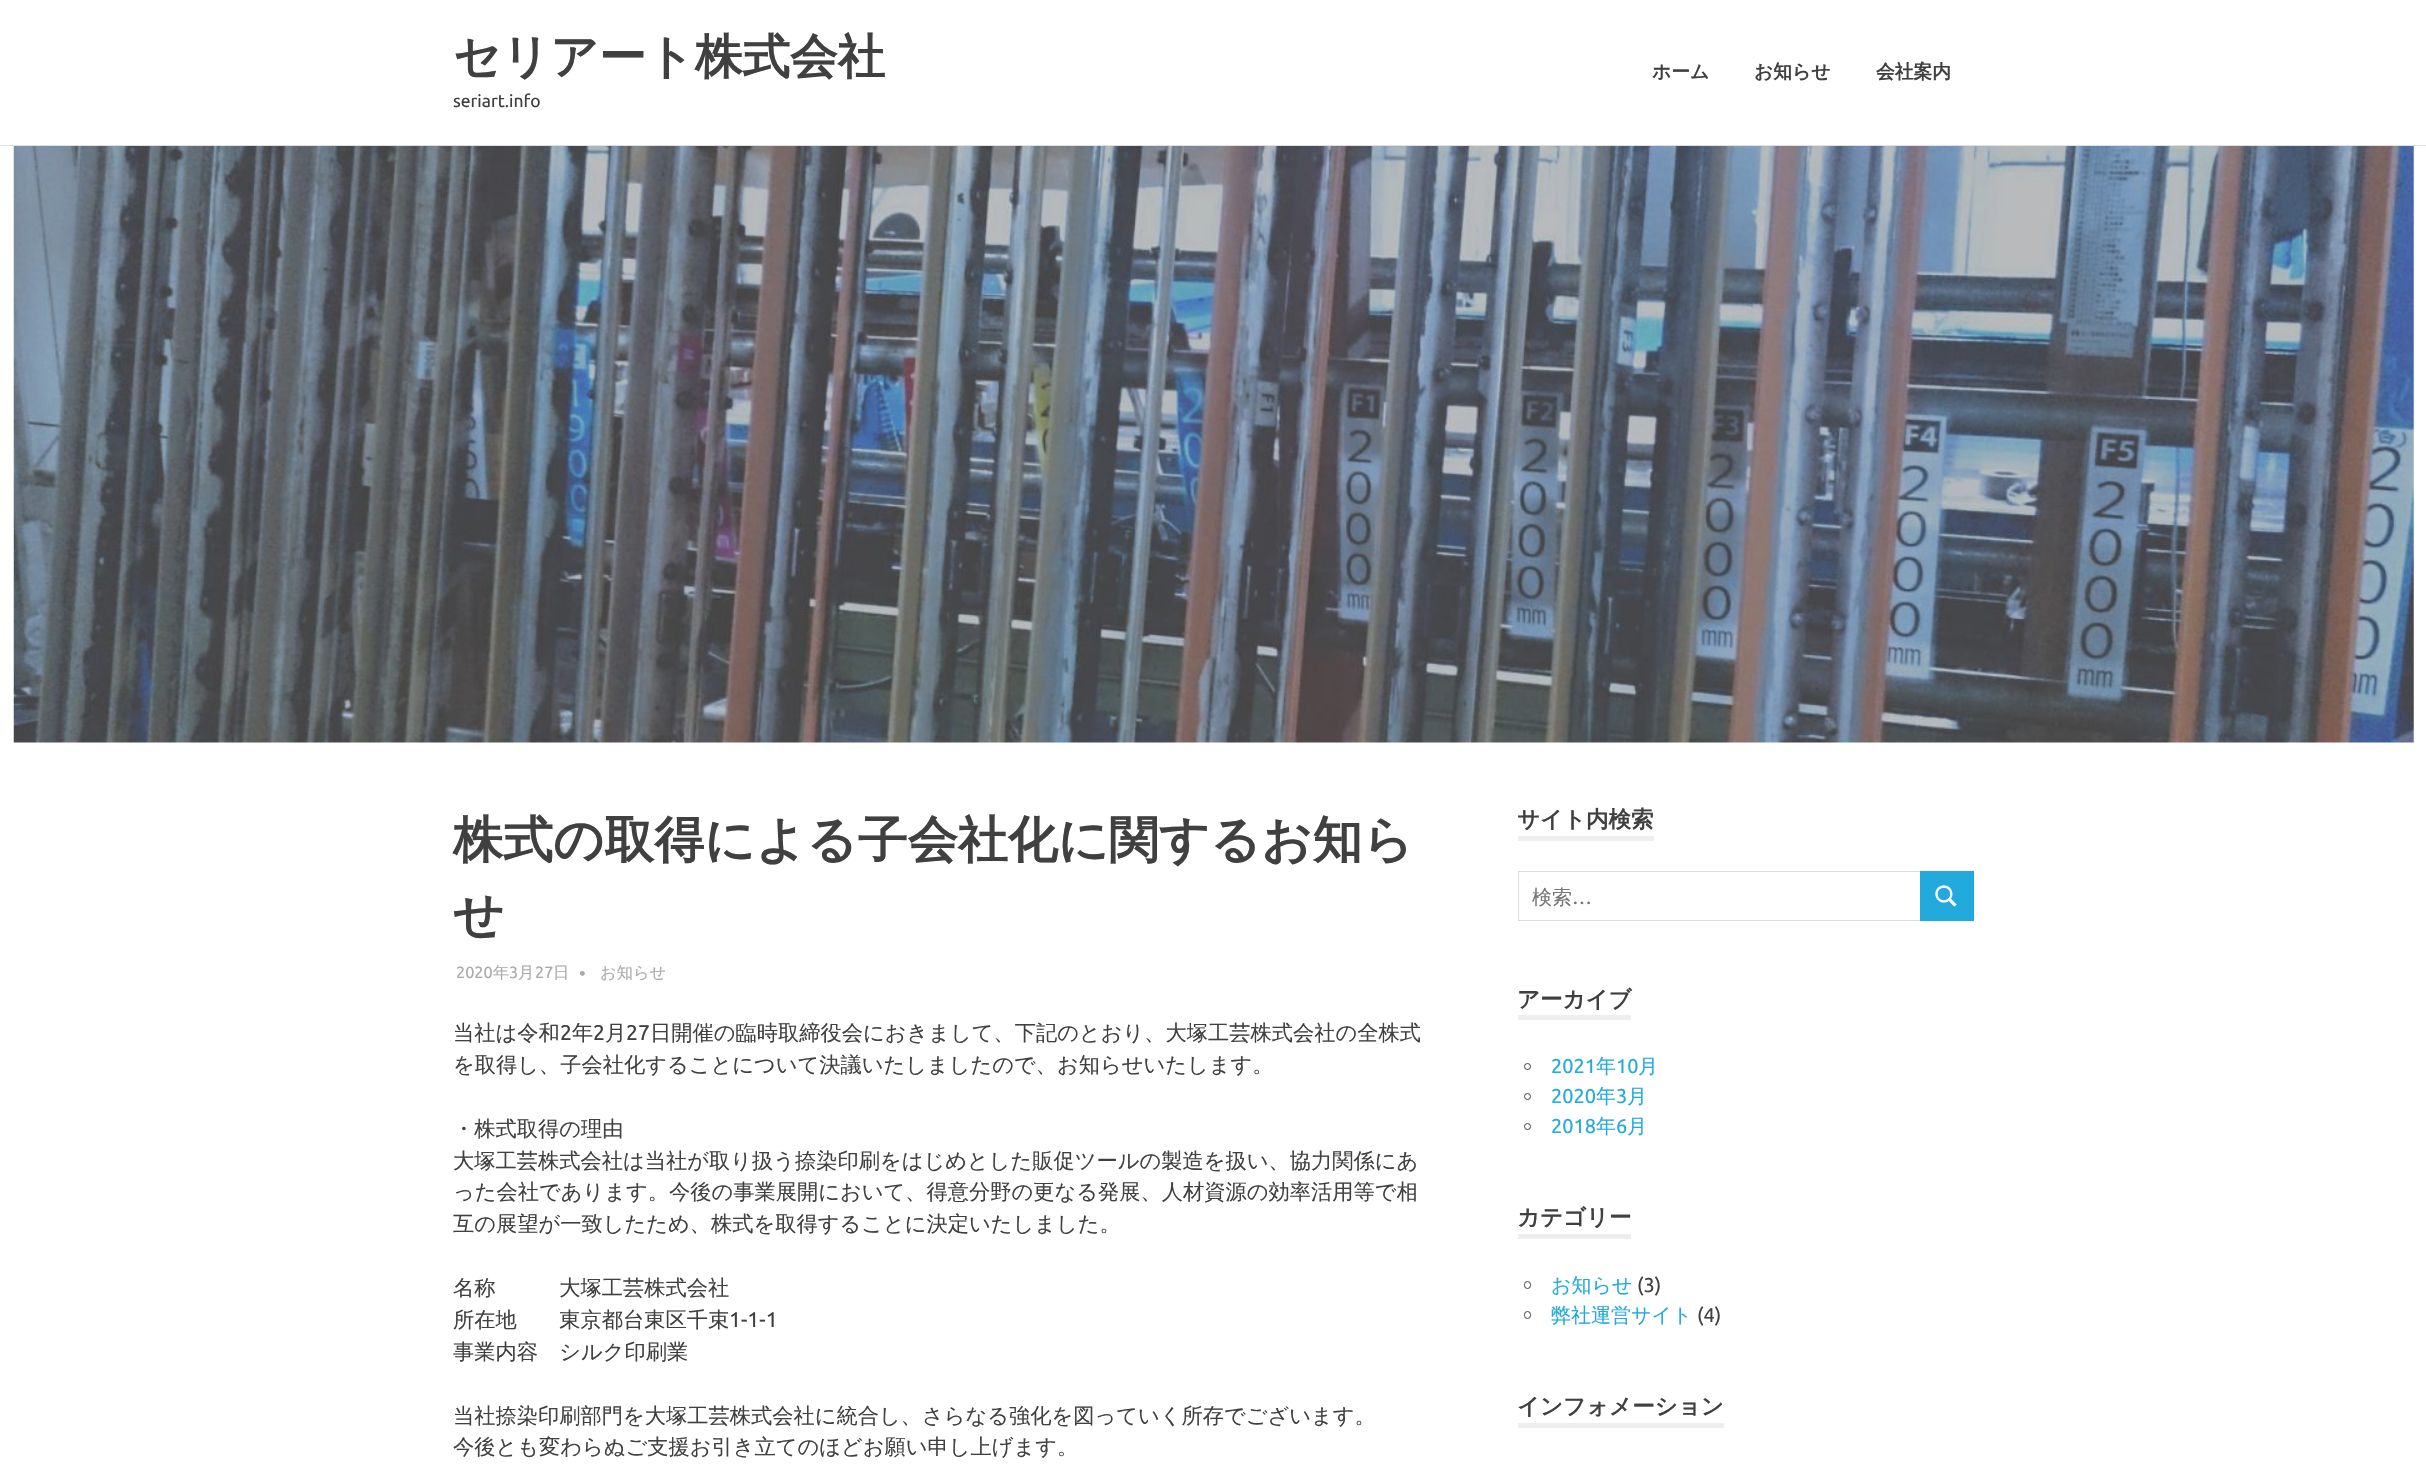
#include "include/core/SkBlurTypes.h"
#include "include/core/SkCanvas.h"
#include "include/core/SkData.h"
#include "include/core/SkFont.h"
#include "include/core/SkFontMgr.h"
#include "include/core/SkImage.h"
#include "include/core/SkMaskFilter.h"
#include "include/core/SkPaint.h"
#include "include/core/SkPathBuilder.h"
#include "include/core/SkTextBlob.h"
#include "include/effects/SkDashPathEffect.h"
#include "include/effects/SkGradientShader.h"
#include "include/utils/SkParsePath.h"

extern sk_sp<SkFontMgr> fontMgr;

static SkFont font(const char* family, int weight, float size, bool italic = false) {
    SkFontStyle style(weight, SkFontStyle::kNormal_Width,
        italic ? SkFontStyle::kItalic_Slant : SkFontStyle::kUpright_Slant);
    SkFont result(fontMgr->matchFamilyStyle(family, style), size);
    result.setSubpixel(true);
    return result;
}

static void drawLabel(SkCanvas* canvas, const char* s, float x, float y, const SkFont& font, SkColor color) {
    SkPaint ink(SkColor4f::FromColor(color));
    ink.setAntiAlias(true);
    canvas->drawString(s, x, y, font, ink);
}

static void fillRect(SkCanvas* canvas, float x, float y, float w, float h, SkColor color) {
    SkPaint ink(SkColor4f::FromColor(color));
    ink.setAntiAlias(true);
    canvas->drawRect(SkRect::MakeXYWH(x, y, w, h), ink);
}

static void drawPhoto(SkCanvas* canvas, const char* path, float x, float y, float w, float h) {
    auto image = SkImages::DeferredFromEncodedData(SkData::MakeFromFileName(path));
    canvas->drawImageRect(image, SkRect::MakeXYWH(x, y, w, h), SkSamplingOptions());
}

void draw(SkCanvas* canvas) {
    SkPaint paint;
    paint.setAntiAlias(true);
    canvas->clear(0xFFFFFFFF);
    fillRect(canvas, 0, 145, 2426, 1, 0xFFE0E0E0);
    SkFont font1 = font("WenQuanYi Zen Hei", 700, 47.5f);
    drawLabel(canvas, "セリアート株式会社", 453, 73, font1, 0xFF404040);
    SkFont font2 = font("Ubuntu", 400, 17.5f);
    drawLabel(canvas, "seriart.info", 453, 107, font2, 0xFF404040);
    SkFont font3 = font("WenQuanYi Zen Hei", 700, 18.75f);
    drawLabel(canvas, "ホーム", 1652, 78, font3, 0xFF404040);
    drawLabel(canvas, "お知らせ", 1754, 78, font3, 0xFF404040);
    drawLabel(canvas, "会社案内", 1876, 78, font3, 0xFF404040);
    drawPhoto(canvas, "assets/img1.png", 13, 146, 2401, 597);
    SkFont font4 = font("WenQuanYi Zen Hei", 700, 50);
    drawLabel(canvas, "株式の取得による子会社化に関するお知ら", 453, 857, font4, 0xFF404040);
    drawLabel(canvas, "せ", 453, 932, font4, 0xFF404040);
    SkFont font5 = font("Ubuntu", 400, 16.25f);
    drawLabel(canvas, "2020", 456, 978, font5, 0xFFAAAAAA);
    SkFont font6 = font("WenQuanYi Zen Hei", 500, 16.25f);
    drawLabel(canvas, "年", 493, 978, font6, 0xFFAAAAAA);
    drawLabel(canvas, "3", 509, 978, font5, 0xFFAAAAAA);
    drawLabel(canvas, "月", 518, 978, font6, 0xFFAAAAAA);
    drawLabel(canvas, "27", 535, 978, font5, 0xFFAAAAAA);
    drawLabel(canvas, "日", 553, 978, font6, 0xFFAAAAAA);
    SkFont font7 = font("Ubuntu", 400, 18.75f);
    drawLabel(canvas, "•", 579, 980, font7, 0xFFAAAAAA);
    drawLabel(canvas, "お知らせ", 600, 978, font6, 0xFFAAAAAA);
    SkFont font8 = font("WenQuanYi Zen Hei", 500, 21.25f);
    drawLabel(canvas, "当社は令和", 453, 1040, font8, 0xFF404040);
    SkFont font9 = font("Ubuntu", 400, 21.25f);
    drawLabel(canvas, "2", 560, 1040, font9, 0xFF404040);
    drawLabel(canvas, "年", 572, 1040, font8, 0xFF404040);
    drawLabel(canvas, "2", 593, 1040, font9, 0xFF404040);
    drawLabel(canvas, "月", 605, 1040, font8, 0xFF404040);
    drawLabel(canvas, "27", 626, 1040, font9, 0xFF404040);
    drawLabel(canvas, "日開催の臨時取締役会におきまして、下記のとおり、大塚工芸株式会社の全株式", 650, 1040, font8, 0xFF404040);
    drawLabel(canvas, "を取得し、子会社化することについて決議いたしましたので、お知らせいたします。", 453, 1072, font8, 0xFF404040);
    drawLabel(canvas, "・株式取得の理由", 453, 1136, font8, 0xFF404040);
    drawLabel(canvas, "大塚工芸株式会社は当社が取り扱う捺染印刷をはじめとした販促ツールの製造を扱い、協力関係にあ", 453, 1168, font8, 0xFF404040);
    drawLabel(canvas, "った会社であります。今後の事業展開において、得意分野の更なる発展、人材資源の効率活用等で相", 453, 1199, font8, 0xFF404040);
    drawLabel(canvas, "互の展望が一致したため、株式を取得することに決定いたしました。", 453, 1231, font8, 0xFF404040);
    drawLabel(canvas, "名称　　　大塚工芸株式会社", 453, 1295, font8, 0xFF404040);
    drawLabel(canvas, "所在地　　東京都台東区千束", 453, 1327, font8, 0xFF404040);
    drawLabel(canvas, "1-1-1", 729, 1327, font9, 0xFF404040);
    drawLabel(canvas, "事業内容　シルク印刷業", 453, 1359, font8, 0xFF404040);
    drawLabel(canvas, "当社捺染印刷部門を大塚工芸株式会社に統合し、さらなる強化を図っていく所存でございます。", 453, 1423, font8, 0xFF404040);
    drawLabel(canvas, "今後とも変わらぬご支援お引き立てのほどお願い申し上げます。", 453, 1454, font8, 0xFF404040);
    fillRect(canvas, 1518, 836, 136, 5, 0xFFEEEEEE);
    SkFont font10 = font("WenQuanYi Zen Hei", 700, 22.5f);
    drawLabel(canvas, "サイト内検索", 1517, 827, font10, 0xFF404040);
    paint.setStroke(true);
    paint.setStrokeWidth(1);
    paint.setColor(0xFFDDDDDD);
    canvas->drawRect(SkRect::MakeXYWH(1518.5f, 871.5f, 402, 49), paint);
    SkFont font11 = font("WenQuanYi Zen Hei", 500, 20);
    drawLabel(canvas, "検索", 1532, 904, font11, 0xFF757575);
    SkFont font12 = font("Ubuntu", 400, 20);
    drawLabel(canvas, "…", 1572, 904, font12, 0xFF757575);
    fillRect(canvas, 1920, 871, 54, 50, 0xFF22AADD);
    drawPhoto(canvas, "assets/img2.png", 1935, 885, 22, 22);
    fillRect(canvas, 1518, 1015, 113, 5, 0xFFEEEEEE);
    drawLabel(canvas, "アーカイブ", 1517, 1007, font10, 0xFF404040);
    paint.setColor(0xFF404040);
    canvas->drawCircle(1527.5f, 1066.5f, 3, paint);
    drawLabel(canvas, "2021", 1551, 1073, font12, 0xFF22AADD);
    drawLabel(canvas, "年", 1596, 1073, font11, 0xFF22AADD);
    drawLabel(canvas, "10", 1616, 1073, font12, 0xFF22AADD);
    drawLabel(canvas, "月", 1638, 1073, font11, 0xFF22AADD);
    canvas->drawCircle(1527.5f, 1096.5f, 3, paint);
    drawLabel(canvas, "2020", 1551, 1103, font12, 0xFF22AADD);
    drawLabel(canvas, "年", 1596, 1103, font11, 0xFF22AADD);
    drawLabel(canvas, "3", 1616, 1103, font12, 0xFF22AADD);
    drawLabel(canvas, "月", 1627, 1103, font11, 0xFF22AADD);
    canvas->drawCircle(1527.5f, 1126.5f, 3, paint);
    drawLabel(canvas, "2018", 1551, 1133, font12, 0xFF22AADD);
    drawLabel(canvas, "年", 1596, 1133, font11, 0xFF22AADD);
    drawLabel(canvas, "6", 1616, 1133, font12, 0xFF22AADD);
    drawLabel(canvas, "月", 1627, 1133, font11, 0xFF22AADD);
    fillRect(canvas, 1518, 1234, 113, 5, 0xFFEEEEEE);
    drawLabel(canvas, "カテゴリー", 1517, 1225, font10, 0xFF404040);
    canvas->drawRoundRect(SkRect::MakeXYWH(1524.5f, 1281.5f, 6, 7), 3, 3, paint);
    drawLabel(canvas, "お知らせ", 1551, 1292, font11, 0xFF22AADD);
    drawLabel(canvas, "(3)", 1637, 1292, font12, 0xFF404040);
    canvas->drawRoundRect(SkRect::MakeXYWH(1524.5f, 1311.5f, 6, 7), 3, 3, paint);
    drawLabel(canvas, "弊社運営サイト", 1551, 1322, font11, 0xFF22AADD);
    drawLabel(canvas, "(4)", 1697, 1322, font12, 0xFF404040);
    fillRect(canvas, 1518, 1423, 206, 5, 0xFFEEEEEE);
    drawLabel(canvas, "インフォメーション", 1517, 1414, font10, 0xFF404040);
}
